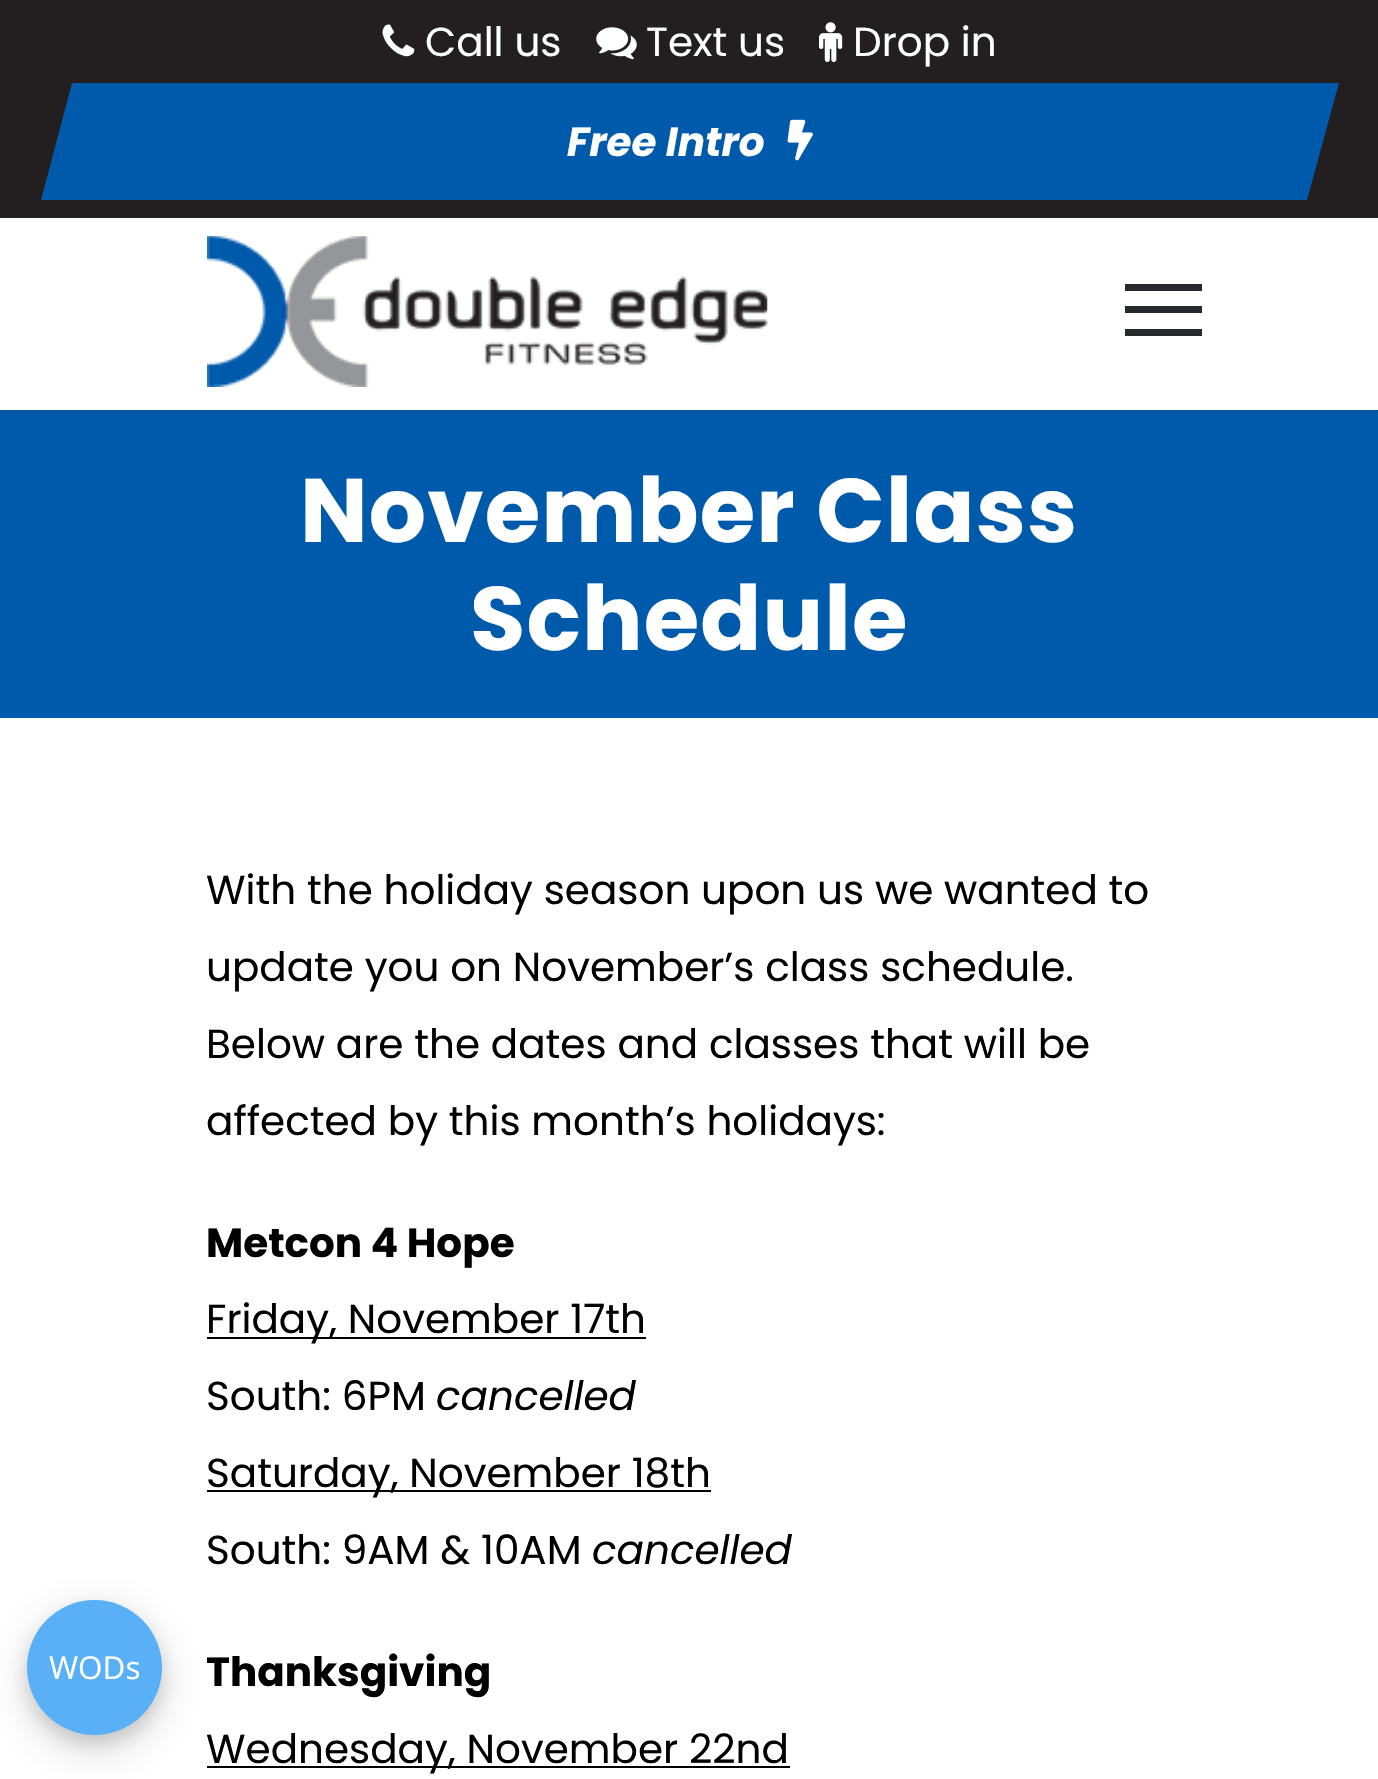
#include "include/core/SkBlurTypes.h"
#include "include/core/SkCanvas.h"
#include "include/core/SkData.h"
#include "include/core/SkFont.h"
#include "include/core/SkFontMgr.h"
#include "include/core/SkImage.h"
#include "include/core/SkMaskFilter.h"
#include "include/core/SkPaint.h"
#include "include/core/SkPathBuilder.h"
#include "include/core/SkTextBlob.h"
#include "include/effects/SkDashPathEffect.h"
#include "include/effects/SkGradientShader.h"
#include "include/utils/SkParsePath.h"

extern sk_sp<SkFontMgr> fontMgr;

static SkFont font(const char* family, int weight, float size, bool italic = false) {
    SkFontStyle style(weight, SkFontStyle::kNormal_Width,
        italic ? SkFontStyle::kItalic_Slant : SkFontStyle::kUpright_Slant);
    SkFont result(fontMgr->matchFamilyStyle(family, style), size);
    result.setSubpixel(true);
    return result;
}

static void drawLabel(SkCanvas* canvas, const char* s, float x, float y, const SkFont& font, SkColor color) {
    SkPaint ink(SkColor4f::FromColor(color));
    ink.setAntiAlias(true);
    canvas->drawString(s, x, y, font, ink);
}

static void drawTracked(SkCanvas* canvas, const char* s, float x, float y, const SkFont& font, const SkPaint& ink, float letter, float word) {
    std::vector<SkGlyphID> glyphs(font.countText(s, strlen(s), SkTextEncoding::kUTF8));
    std::vector<float> xs(glyphs.size());
    font.textToGlyphs(s, strlen(s), SkTextEncoding::kUTF8, glyphs);
    font.getXPos(glyphs, xs, x);
    float extra = 0;
    for (size_t i = 0; i < glyphs.size(); i++) {
        xs[i] += extra;
        extra += letter + word * (glyphs[i] == font.unicharToGlyph(' '));
    }
    canvas->drawTextBlob(SkTextBlob::MakeFromPosHGlyphs(glyphs, xs, y, font), 0, 0, ink);
}

static void fillRect(SkCanvas* canvas, float x, float y, float w, float h, SkColor color) {
    SkPaint ink(SkColor4f::FromColor(color));
    ink.setAntiAlias(true);
    canvas->drawRect(SkRect::MakeXYWH(x, y, w, h), ink);
}

static void drawPhoto(SkCanvas* canvas, const char* path, float x, float y, float w, float h) {
    auto image = SkImages::DeferredFromEncodedData(SkData::MakeFromFileName(path));
    canvas->drawImageRect(image, SkRect::MakeXYWH(x, y, w, h), SkSamplingOptions());
}

static SkPath parsePath(const char* data, bool evenOdd = false) {
    SkPath result = *SkParsePath::FromSVGString(data);
    if (evenOdd) result.setFillType(SkPathFillType::kEvenOdd);
    return result;
}

void draw(SkCanvas* canvas) {
    SkPaint paint;
    paint.setAntiAlias(true);
    canvas->clear(0xFFFFFFFF);
    fillRect(canvas, 0, 410, 1378, 308, 0xFF005AAB);
    paint.setColor(0x1A000000);
    paint.setMaskFilter(SkMaskFilter::MakeBlur(kNormal_SkBlurStyle, 2));
    canvas->drawRect(SkRect::MakeXYWH(0, 2, 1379, 410), paint);
    paint.setMaskFilter(nullptr);
    fillRect(canvas, 0, 218, 1378, 192, 0xFFFFFFFF);
    drawPhoto(canvas, "assets/img1.png", 207, 236, 561, 151);
    fillRect(canvas, 1125, 284, 77, 7, 0xFF28292C);
    fillRect(canvas, 1125, 306, 77, 7, 0xFF28292C);
    fillRect(canvas, 1125, 329, 77, 7, 0xFF28292C);
    fillRect(canvas, 0, 0, 1378, 218, 0xFF231F20);
    drawPhoto(canvas, "assets/img2.png", 382, 24, 33, 33);
    SkFont font1 = font("Poppins", 400, 40.5f);
    drawLabel(canvas, "Call us", 425, 56, font1, 0xFFFFFFFF);
    drawPhoto(canvas, "assets/img3.png", 596, 27, 41, 33);
    drawLabel(canvas, "Text us", 646, 56, font1, 0xFFFFFFFF);
    drawPhoto(canvas, "assets/img4.png", 819, 22, 24, 40);
    drawLabel(canvas, "Drop in", 853, 56, font1, 0xFFFFFFFF);
    paint.setColor(0xFF005AAB);
    canvas->drawPath(parsePath("M72 83H1339L1307 200H41Z"), paint);
    SkFont font2 = font("Poppins", 700, 40.5f, true);
    drawLabel(canvas, "Free Intro", 567, 156, font2, 0xFFFFFFFF);
    drawPhoto(canvas, "assets/img5.png", 787, 119, 26, 42);
    fillRect(canvas, 207, 1766, 583, 2, 0xFF000000);
    paint.setColor(0x30404040);
    paint.setMaskFilter(SkMaskFilter::MakeBlur(kNormal_SkBlurStyle, 22.5f));
    canvas->drawRoundRect(SkRect::MakeXYWH(27, 1613, 135, 135), 67.5f, 67.5f, paint);
    paint.setMaskFilter(nullptr);
    paint.setColor(0x33404040);
    paint.setMaskFilter(SkMaskFilter::MakeBlur(kNormal_SkBlurStyle, 9));
    canvas->drawRoundRect(SkRect::MakeXYWH(27, 1609, 135, 135), 67.5f, 67.5f, paint);
    paint.setMaskFilter(nullptr);
    paint.setColor(0xFF59B0F6);
    canvas->drawCircle(94.5f, 1667.5f, 67.5f, paint);
    SkFont font3 = font("Open Sans", 400, 31.5f);
    drawLabel(canvas, "WODs", 49, 1679, font3, 0xFFFFFFFF);
    SkFont font4 = font("Poppins", 700, 90);
    paint.setColor(0xFFFFFFFF);
    drawTracked(canvas, "November Class", 300, 542, font4, paint, 1.1f, 0);
    drawTracked(canvas, "Schedule", 470, 650, font4, paint, 1.1f, 0);
    drawLabel(canvas, "With the holiday season upon us we wanted to", 206, 904, font1, 0xFF000000);
    drawLabel(canvas, "update you on November’s class schedule.", 206, 981, font1, 0xFF000000);
    drawLabel(canvas, "Below are the dates and classes that will be", 206, 1058, font1, 0xFF000000);
    drawLabel(canvas, "affected by this month’s holidays:", 206, 1135, font1, 0xFF000000);
    SkFont font5 = font("Poppins", 700, 40.5f);
    drawLabel(canvas, "Metcon 4 Hope", 206, 1257, font5, 0xFF000000);
    fillRect(canvas, 207, 1337, 439, 2, 0xFF000000);
    drawLabel(canvas, "Friday, November 17th", 206, 1333, font1, 0xFF000000);
    drawLabel(canvas, "South: 6PM", 206, 1410, font1, 0xFF000000);
    SkFont font6 = font("Poppins", 400, 40.5f, true);
    drawLabel(canvas, "cancelled", 436, 1410, font6, 0xFF000000);
    fillRect(canvas, 207, 1490, 504, 2, 0xFF000000);
    drawLabel(canvas, "Saturday, November 18th", 206, 1487, font1, 0xFF000000);
    drawLabel(canvas, "South: 9AM & 10AM", 206, 1564, font1, 0xFF000000);
    drawLabel(canvas, "cancelled", 592, 1564, font6, 0xFF000000);
    drawLabel(canvas, "Thanksgiving", 206, 1686, font5, 0xFF000000);
    drawLabel(canvas, "Wednesday, November 22nd", 206, 1763, font1, 0xFF000000);
}
